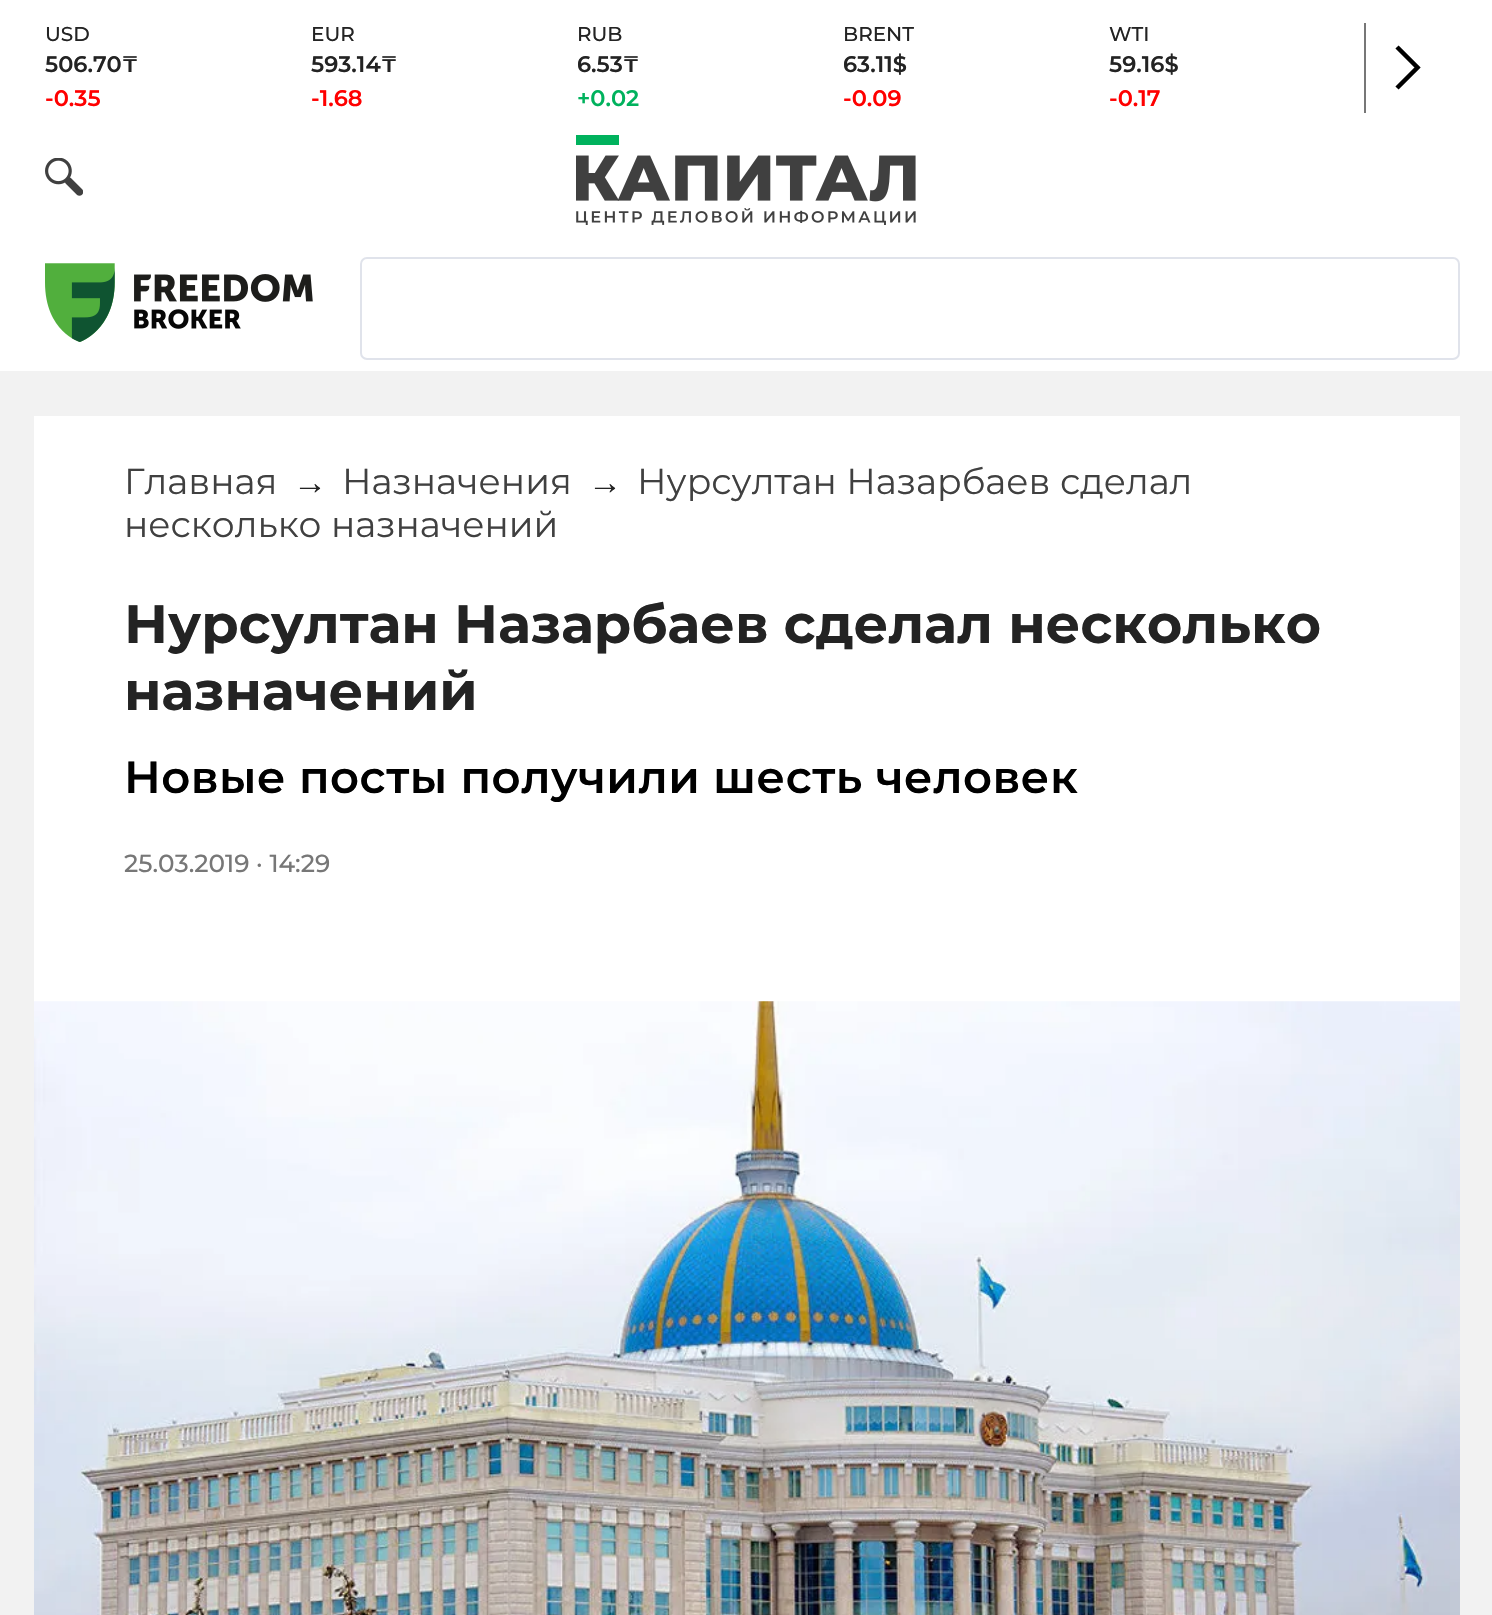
#include "include/core/SkBlurTypes.h"
#include "include/core/SkCanvas.h"
#include "include/core/SkData.h"
#include "include/core/SkFont.h"
#include "include/core/SkFontMgr.h"
#include "include/core/SkImage.h"
#include "include/core/SkMaskFilter.h"
#include "include/core/SkPaint.h"
#include "include/core/SkPathBuilder.h"
#include "include/core/SkTextBlob.h"
#include "include/effects/SkDashPathEffect.h"
#include "include/effects/SkGradientShader.h"
#include "include/utils/SkParsePath.h"

extern sk_sp<SkFontMgr> fontMgr;

static SkFont font(const char* family, int weight, float size, bool italic = false) {
    SkFontStyle style(weight, SkFontStyle::kNormal_Width,
        italic ? SkFontStyle::kItalic_Slant : SkFontStyle::kUpright_Slant);
    SkFont result(fontMgr->matchFamilyStyle(family, style), size);
    result.setSubpixel(true);
    return result;
}

static void drawLabel(SkCanvas* canvas, const char* s, float x, float y, const SkFont& font, SkColor color) {
    SkPaint ink(SkColor4f::FromColor(color));
    ink.setAntiAlias(true);
    canvas->drawString(s, x, y, font, ink);
}

static void drawTracked(SkCanvas* canvas, const char* s, float x, float y, const SkFont& font, const SkPaint& ink, float letter, float word) {
    std::vector<SkGlyphID> glyphs(font.countText(s, strlen(s), SkTextEncoding::kUTF8));
    std::vector<float> xs(glyphs.size());
    font.textToGlyphs(s, strlen(s), SkTextEncoding::kUTF8, glyphs);
    font.getXPos(glyphs, xs, x);
    float extra = 0;
    for (size_t i = 0; i < glyphs.size(); i++) {
        xs[i] += extra;
        extra += letter + word * (glyphs[i] == font.unicharToGlyph(' '));
    }
    canvas->drawTextBlob(SkTextBlob::MakeFromPosHGlyphs(glyphs, xs, y, font), 0, 0, ink);
}

static void fillRect(SkCanvas* canvas, float x, float y, float w, float h, SkColor color) {
    SkPaint ink(SkColor4f::FromColor(color));
    ink.setAntiAlias(true);
    canvas->drawRect(SkRect::MakeXYWH(x, y, w, h), ink);
}

static void drawPhoto(SkCanvas* canvas, const char* path, float x, float y, float w, float h) {
    auto image = SkImages::DeferredFromEncodedData(SkData::MakeFromFileName(path));
    canvas->drawImageRect(image, SkRect::MakeXYWH(x, y, w, h), SkSamplingOptions());
}

static SkPath parsePath(const char* data, bool evenOdd = false) {
    SkPath result = *SkParsePath::FromSVGString(data);
    if (evenOdd) result.setFillType(SkPathFillType::kEvenOdd);
    return result;
}

void draw(SkCanvas* canvas) {
    SkPaint paint;
    paint.setAntiAlias(true);
    canvas->clear(0xFFF2F2F2);
    fillRect(canvas, 0, 0, 1492, 371, 0xFFFFFFFF);
    drawPhoto(canvas, "assets/img1.png", 45, 263, 268, 79);
    paint.setStroke(true);
    paint.setStrokeWidth(2);
    paint.setColor(0xFFE0E3EB);
    canvas->drawRoundRect(SkRect::MakeXYWH(361, 258, 1098, 101), 6, 6, paint);
    SkFont font1 = font("Montserrat", 500, 20);
    drawLabel(canvas, "USD", 45, 41, font1, 0xFF232323);
    SkFont font2 = font("Montserrat", 600, 22.5f);
    drawLabel(canvas, "506.70₸", 45, 72, font2, 0xFF232323);
    drawLabel(canvas, "-0.35", 45, 106, font2, 0xFFFF0000);
    drawLabel(canvas, "EUR", 311, 41, font1, 0xFF232323);
    drawLabel(canvas, "593.14₸", 311, 72, font2, 0xFF232323);
    drawLabel(canvas, "-1.68", 311, 106, font2, 0xFFFF0000);
    drawLabel(canvas, "RUB", 577, 41, font1, 0xFF232323);
    drawLabel(canvas, "6.53₸", 577, 72, font2, 0xFF232323);
    drawLabel(canvas, "+0.02", 577, 106, font2, 0xFF00B25D);
    drawLabel(canvas, "BRENT", 843, 41, font1, 0xFF232323);
    drawLabel(canvas, "63.11$", 843, 72, font2, 0xFF232323);
    drawLabel(canvas, "-0.09", 843, 106, font2, 0xFFFF0000);
    drawLabel(canvas, "WTI", 1109, 41, font1, 0xFF232323);
    drawLabel(canvas, "59.16$", 1109, 72, font2, 0xFF232323);
    drawLabel(canvas, "-0.17", 1109, 106, font2, 0xFFFF0000);
    fillRect(canvas, 1364, 23, 2, 90, 0xFF777777);
    paint.setStrokeWidth(4.5f);
    paint.setColor(0xFF000000);
    canvas->drawPath(parsePath("M1397 47L1417.5 67.5L1397 88"), paint);
    drawPhoto(canvas, "assets/img2.png", 45, 158, 38, 38);
    drawPhoto(canvas, "assets/img3.png", 576, 135, 340, 90);
    fillRect(canvas, 34, 416, 1426, 586, 0xFFFFFFFF);
    SkFont font3 = font("Montserrat", 400, 36);
    drawLabel(canvas, "Главная", 124, 494, font3, 0xFF404040);
    SkFont font4 = font("Liberation Serif", 400, 34);
    drawLabel(canvas, "→", 293, 494, font4, 0xFF232323);
    drawLabel(canvas, "Назначения", 342, 494, font3, 0xFF404040);
    drawLabel(canvas, "→", 588, 494, font4, 0xFF232323);
    drawLabel(canvas, "Нурсултан Назарбаев сделал", 637, 494, font3, 0xFF404040);
    drawLabel(canvas, "несколько назначений", 124, 537, font3, 0xFF404040);
    SkFont font5 = font("Montserrat", 700, 54);
    drawLabel(canvas, "Нурсултан Назарбаев сделал несколько", 124, 643, font5, 0xFF232323);
    drawLabel(canvas, "назначений", 124, 710, font5, 0xFF232323);
    SkFont font6 = font("Montserrat", 600, 45);
    paint.setStroke(false);
    drawTracked(canvas, "Новые посты получили шесть человек", 124, 793, font6, paint, 0.45f, 0);
    SkFont font7 = font("Montserrat", 500, 24.75f);
    drawLabel(canvas, "25.03.2019 · 14:29", 124, 872, font7, 0xFF777777);
    drawPhoto(canvas, "assets/img4.png", 34, 1001, 1426, 614);
}
